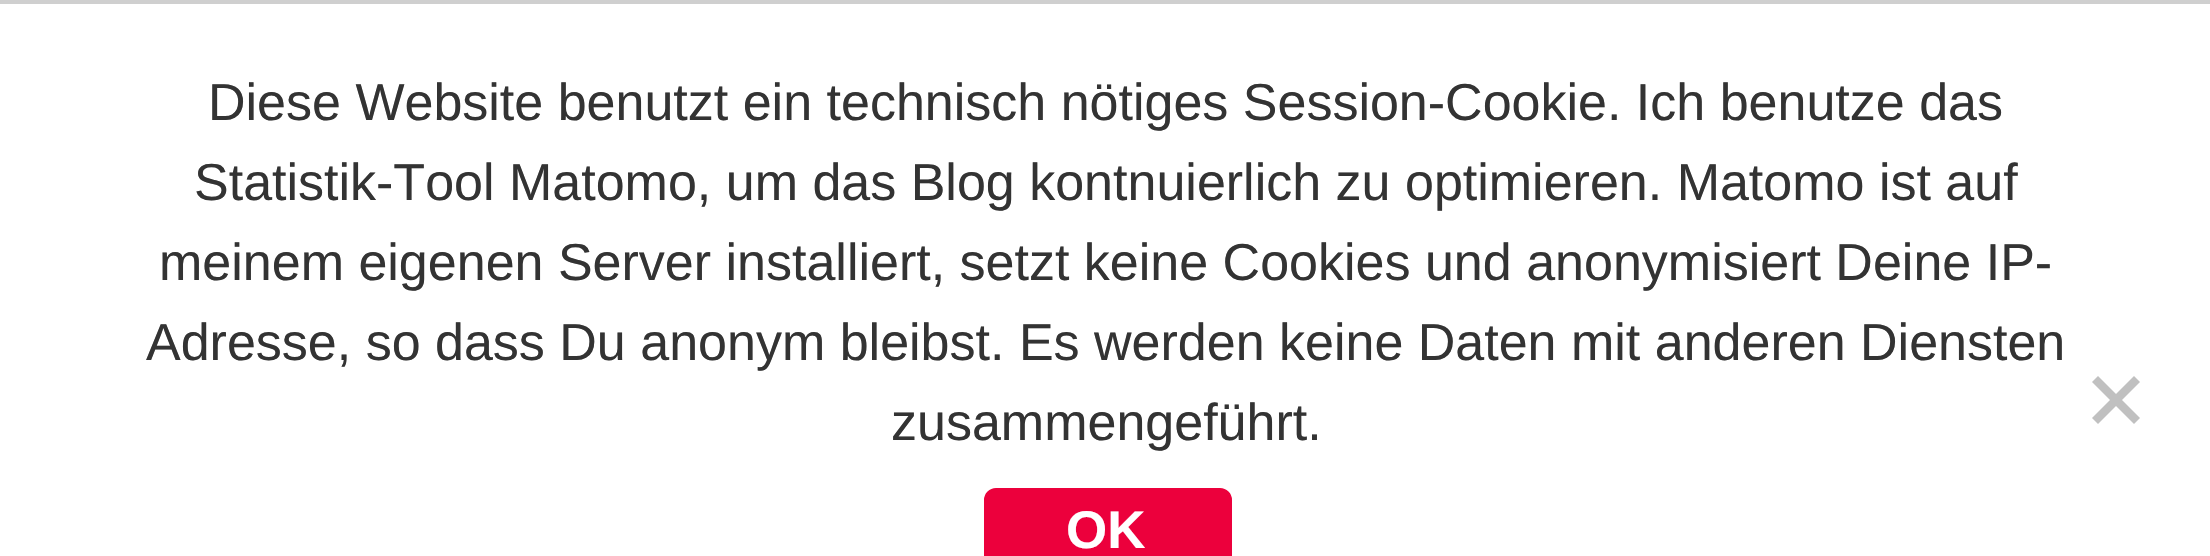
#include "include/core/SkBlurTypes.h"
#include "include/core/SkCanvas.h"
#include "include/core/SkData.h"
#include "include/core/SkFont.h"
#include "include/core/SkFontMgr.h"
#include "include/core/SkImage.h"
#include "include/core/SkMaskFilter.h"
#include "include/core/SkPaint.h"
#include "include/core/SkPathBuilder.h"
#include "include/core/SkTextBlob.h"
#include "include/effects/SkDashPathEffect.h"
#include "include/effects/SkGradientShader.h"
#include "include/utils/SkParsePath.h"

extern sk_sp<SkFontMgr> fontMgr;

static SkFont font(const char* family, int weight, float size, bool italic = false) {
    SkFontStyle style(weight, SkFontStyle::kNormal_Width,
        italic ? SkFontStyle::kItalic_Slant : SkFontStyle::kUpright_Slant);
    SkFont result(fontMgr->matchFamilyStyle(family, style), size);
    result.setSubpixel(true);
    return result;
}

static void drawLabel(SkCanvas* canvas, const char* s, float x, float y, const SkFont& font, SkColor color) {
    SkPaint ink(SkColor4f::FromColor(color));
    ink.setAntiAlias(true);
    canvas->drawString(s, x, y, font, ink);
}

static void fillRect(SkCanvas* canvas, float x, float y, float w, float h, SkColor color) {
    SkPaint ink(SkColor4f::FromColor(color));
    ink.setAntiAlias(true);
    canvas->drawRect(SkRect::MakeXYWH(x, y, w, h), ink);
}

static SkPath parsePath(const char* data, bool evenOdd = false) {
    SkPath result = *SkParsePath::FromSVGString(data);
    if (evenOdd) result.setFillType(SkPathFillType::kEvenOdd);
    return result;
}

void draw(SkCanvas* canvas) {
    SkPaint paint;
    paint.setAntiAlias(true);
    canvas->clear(0xFFFFFFFF);
    fillRect(canvas, 0, 0, 2210, 4, 0xFFCFCFCF);
    SkFont font1 = font("Liberation Sans", 400, 52);
    drawLabel(canvas, "Diese Website benutzt ein technisch nötiges Session-Cookie. Ich benutze das", 208, 120, font1, 0xFF333333);
    drawLabel(canvas, "Statistik-Tool Matomo, um das Blog kontnuierlich zu optimieren. Matomo ist auf", 194, 200, font1, 0xFF333333);
    drawLabel(canvas, "meinem eigenen Server installiert, setzt keine Cookies und anonymisiert Deine IP-", 159, 280, font1, 0xFF333333);
    drawLabel(canvas, "Adresse, so dass Du anonym bleibst. Es werden keine Daten mit anderen Diensten", 146, 360, font1, 0xFF333333);
    drawLabel(canvas, "zusammengeführt.", 891, 440, font1, 0xFF333333);
    paint.setColor(0xFFC0C0C0);
    canvas->drawPath(parsePath("M2134 376L2140 382L2098 424L2092 418Z"), paint);
    canvas->drawPath(parsePath("M2092 382L2098 376L2140 418L2134 424Z"), paint);
    paint.setColor(0xFFEC003C);
    canvas->drawRoundRect(SkRect::MakeXYWH(986, 490, 244, 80), 10, 10, paint);
    paint.setStroke(true);
    paint.setStrokeWidth(4);
    canvas->drawRoundRect(SkRect::MakeXYWH(986, 490, 244, 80), 10, 10, paint);
    SkFont font2 = font("Liberation Sans", 700, 53);
    drawLabel(canvas, "OK", 1066, 548, font2, 0xFFFFFFFF);
}
